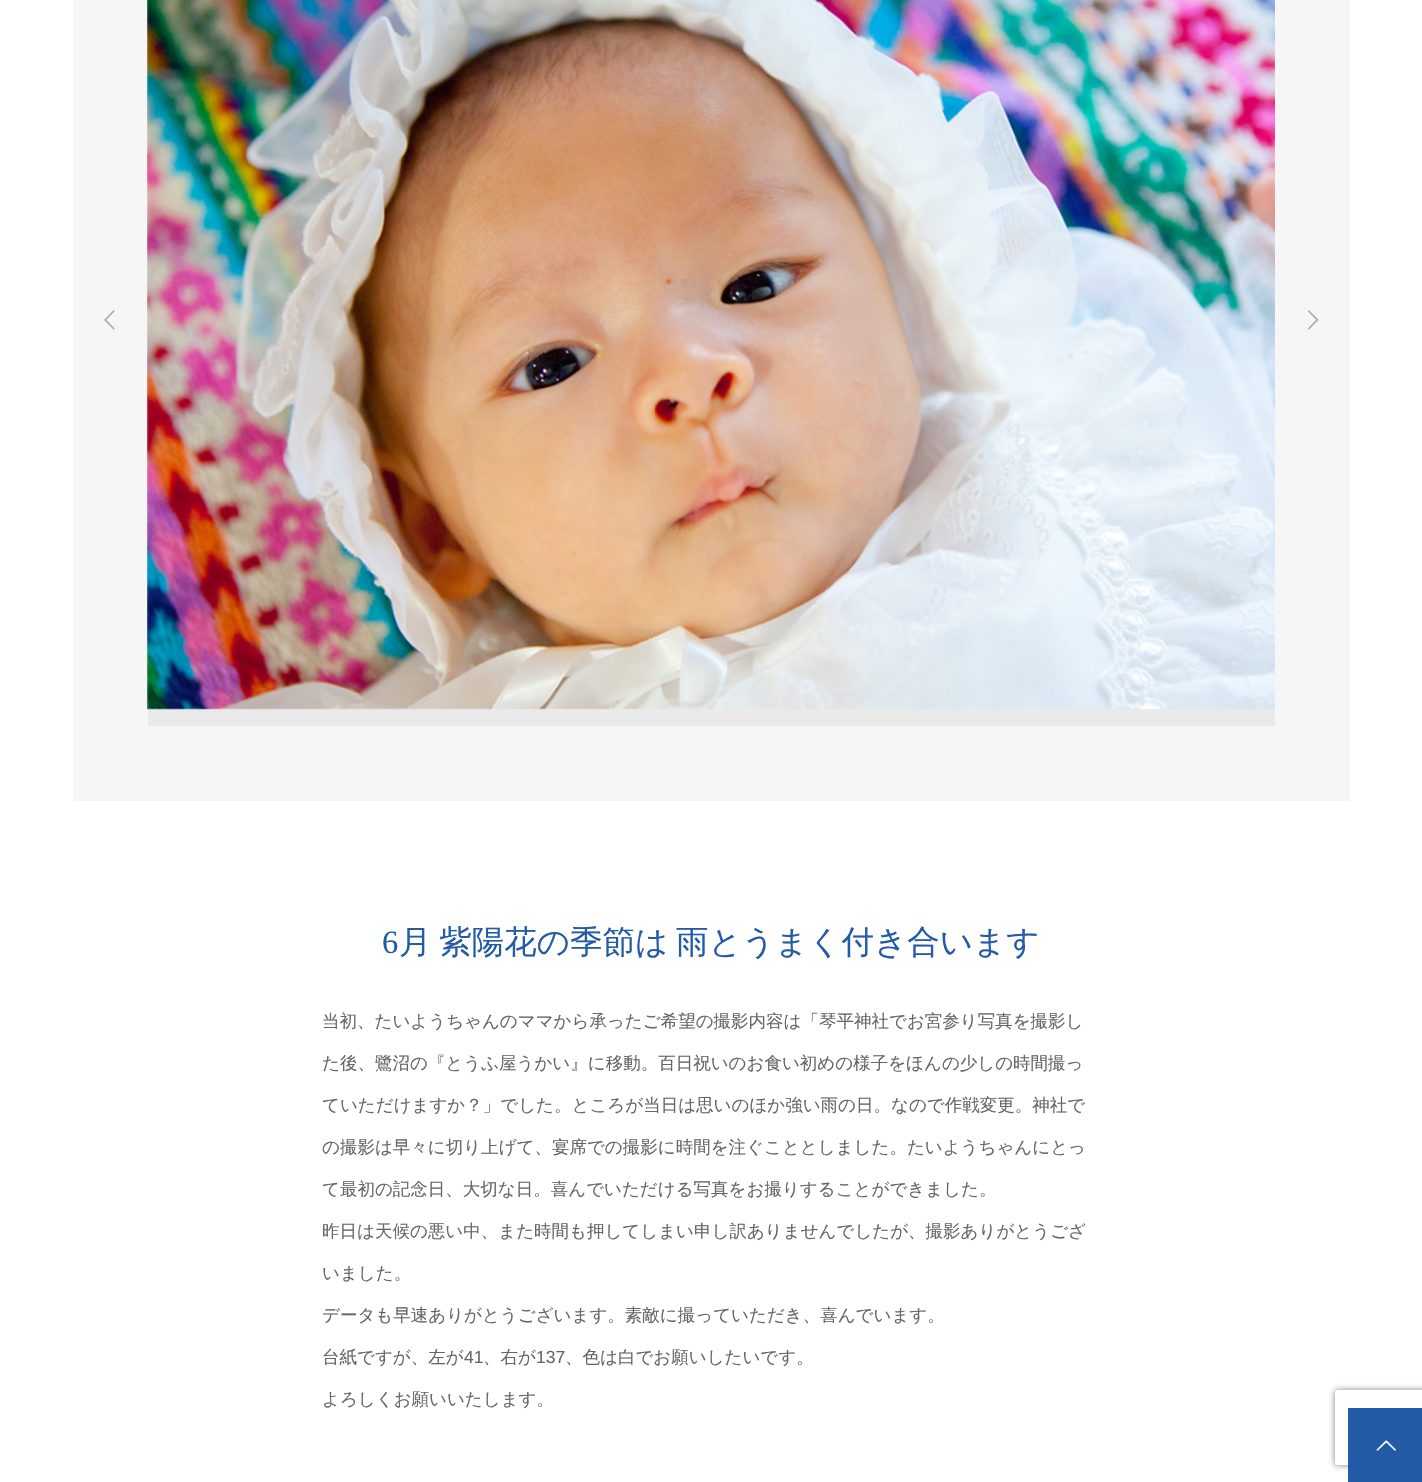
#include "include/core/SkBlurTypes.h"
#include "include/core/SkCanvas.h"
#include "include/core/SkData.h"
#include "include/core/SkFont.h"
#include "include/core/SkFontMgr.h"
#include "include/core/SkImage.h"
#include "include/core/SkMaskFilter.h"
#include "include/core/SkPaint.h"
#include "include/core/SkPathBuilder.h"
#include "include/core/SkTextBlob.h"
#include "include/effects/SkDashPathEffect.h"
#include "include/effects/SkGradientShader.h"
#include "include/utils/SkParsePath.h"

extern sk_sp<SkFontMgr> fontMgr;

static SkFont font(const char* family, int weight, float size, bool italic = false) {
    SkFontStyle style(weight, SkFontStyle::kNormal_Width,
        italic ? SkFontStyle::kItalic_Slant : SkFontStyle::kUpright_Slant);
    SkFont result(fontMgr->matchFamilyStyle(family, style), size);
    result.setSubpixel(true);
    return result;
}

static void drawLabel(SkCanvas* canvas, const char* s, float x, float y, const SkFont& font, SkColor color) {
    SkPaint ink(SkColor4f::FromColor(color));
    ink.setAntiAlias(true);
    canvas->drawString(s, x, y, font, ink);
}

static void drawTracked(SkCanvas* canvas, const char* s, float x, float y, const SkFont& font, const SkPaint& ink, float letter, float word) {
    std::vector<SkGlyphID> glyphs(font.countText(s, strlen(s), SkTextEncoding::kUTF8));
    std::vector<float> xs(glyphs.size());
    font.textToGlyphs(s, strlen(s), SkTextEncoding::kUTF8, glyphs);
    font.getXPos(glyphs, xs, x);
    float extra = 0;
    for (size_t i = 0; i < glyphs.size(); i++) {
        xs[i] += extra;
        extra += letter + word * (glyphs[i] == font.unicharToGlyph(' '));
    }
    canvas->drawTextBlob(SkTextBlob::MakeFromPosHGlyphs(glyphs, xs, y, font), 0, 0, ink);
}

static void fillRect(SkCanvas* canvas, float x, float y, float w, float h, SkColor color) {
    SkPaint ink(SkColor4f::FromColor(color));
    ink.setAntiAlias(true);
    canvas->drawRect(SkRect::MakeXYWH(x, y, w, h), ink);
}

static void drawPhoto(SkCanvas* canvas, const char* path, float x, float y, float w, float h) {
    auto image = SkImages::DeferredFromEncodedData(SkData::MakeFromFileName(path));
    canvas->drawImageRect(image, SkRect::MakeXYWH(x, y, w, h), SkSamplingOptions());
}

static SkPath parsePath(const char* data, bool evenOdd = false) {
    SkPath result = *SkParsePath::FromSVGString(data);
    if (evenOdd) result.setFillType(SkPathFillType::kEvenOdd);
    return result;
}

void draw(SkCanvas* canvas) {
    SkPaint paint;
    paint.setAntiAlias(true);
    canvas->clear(0xFFFFFFFF);
    fillRect(canvas, 73, 0, 1277, 801, 0xFFF6F6F6);
    drawPhoto(canvas, "assets/img1.png", 104, 310, 11, 20);
    fillRect(canvas, 148, 0, 1127, 726, 0xFFEAEAEA);
    drawPhoto(canvas, "assets/img2.png", 147, 0, 1128, 710);
    drawPhoto(canvas, "assets/img3.png", 1308, 310, 11, 20);
    SkFont font1 = font("Liberation Serif", 400, 32.5f);
    drawLabel(canvas, "6", 382, 953, font1, 0xFF235BA7);
    SkFont font2 = font("WenQuanYi Zen Hei", 500, 32.5f);
    paint.setColor(0xFF235BA7);
    drawTracked(canvas, "月 紫陽花の季節は 雨とうまく付き合います", 399, 953, font2, paint, 0, -2);
    SkFont font3 = font("WenQuanYi Zen Hei", 500, 17.5f);
    drawLabel(canvas, "当初、たいようちゃんのママから承ったご希望の撮影内容は「琴平神社でお宮参り写真を撮影し", 322, 1027, font3, 0xFF666666);
    drawLabel(canvas, "た後、鷺沼の『とうふ屋うかい』に移動。百日祝いのお食い初めの様子をほんの少しの時間撮っ", 322, 1069, font3, 0xFF666666);
    drawLabel(canvas, "ていただけますか？」でした。ところが当日は思いのほか強い雨の日。なので作戦変更。神社で", 322, 1111, font3, 0xFF666666);
    drawLabel(canvas, "の撮影は早々に切り上げて、宴席での撮影に時間を注ぐこととしました。たいようちゃんにとっ", 322, 1153, font3, 0xFF666666);
    drawLabel(canvas, "て最初の記念日、大切な日。喜んでいただける写真をお撮りすることができました。", 322, 1195, font3, 0xFF666666);
    drawLabel(canvas, "昨日は天候の悪い中、また時間も押してしまい申し訳ありませんでしたが、撮影ありがとうござ", 322, 1237, font3, 0xFF666666);
    drawLabel(canvas, "いました。", 322, 1279, font3, 0xFF666666);
    drawLabel(canvas, "データも早速ありがとうございます。素敵に撮っていただき、喜んでいます。", 322, 1321, font3, 0xFF666666);
    drawLabel(canvas, "台紙ですが、左が", 322, 1363, font3, 0xFF666666);
    SkFont font4 = font("Liberation Sans", 400, 17.5f);
    drawLabel(canvas, "41", 464, 1363, font4, 0xFF666666);
    drawLabel(canvas, "、右が", 483, 1363, font3, 0xFF666666);
    drawLabel(canvas, "137", 536, 1363, font4, 0xFF666666);
    drawLabel(canvas, "、色は白でお願いしたいです。", 565, 1363, font3, 0xFF666666);
    drawLabel(canvas, "よろしくお願いいたします。", 322, 1405, font3, 0xFF666666);
    canvas->save();
    canvas->clipPath(parsePath("M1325 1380H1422V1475H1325ZM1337.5 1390H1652.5C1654 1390 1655 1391 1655 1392.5V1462.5C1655 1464 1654 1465 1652.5 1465H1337.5C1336 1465 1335 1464 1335 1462.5V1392.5C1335 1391 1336 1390 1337.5 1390Z", true), true);
    paint.setColor(0xFF808080);
    paint.setMaskFilter(SkMaskFilter::MakeBlur(kNormal_SkBlurStyle, 3));
    canvas->drawRoundRect(SkRect::MakeXYWH(1335, 1390, 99, 75), 2.5f, 2.5f, paint);
    paint.setMaskFilter(nullptr);
    canvas->restore();
    fillRect(canvas, 1348, 1408, 74, 74, 0xFF235BA7);
    drawPhoto(canvas, "assets/img4.png", 1376, 1440, 20, 11);
}
